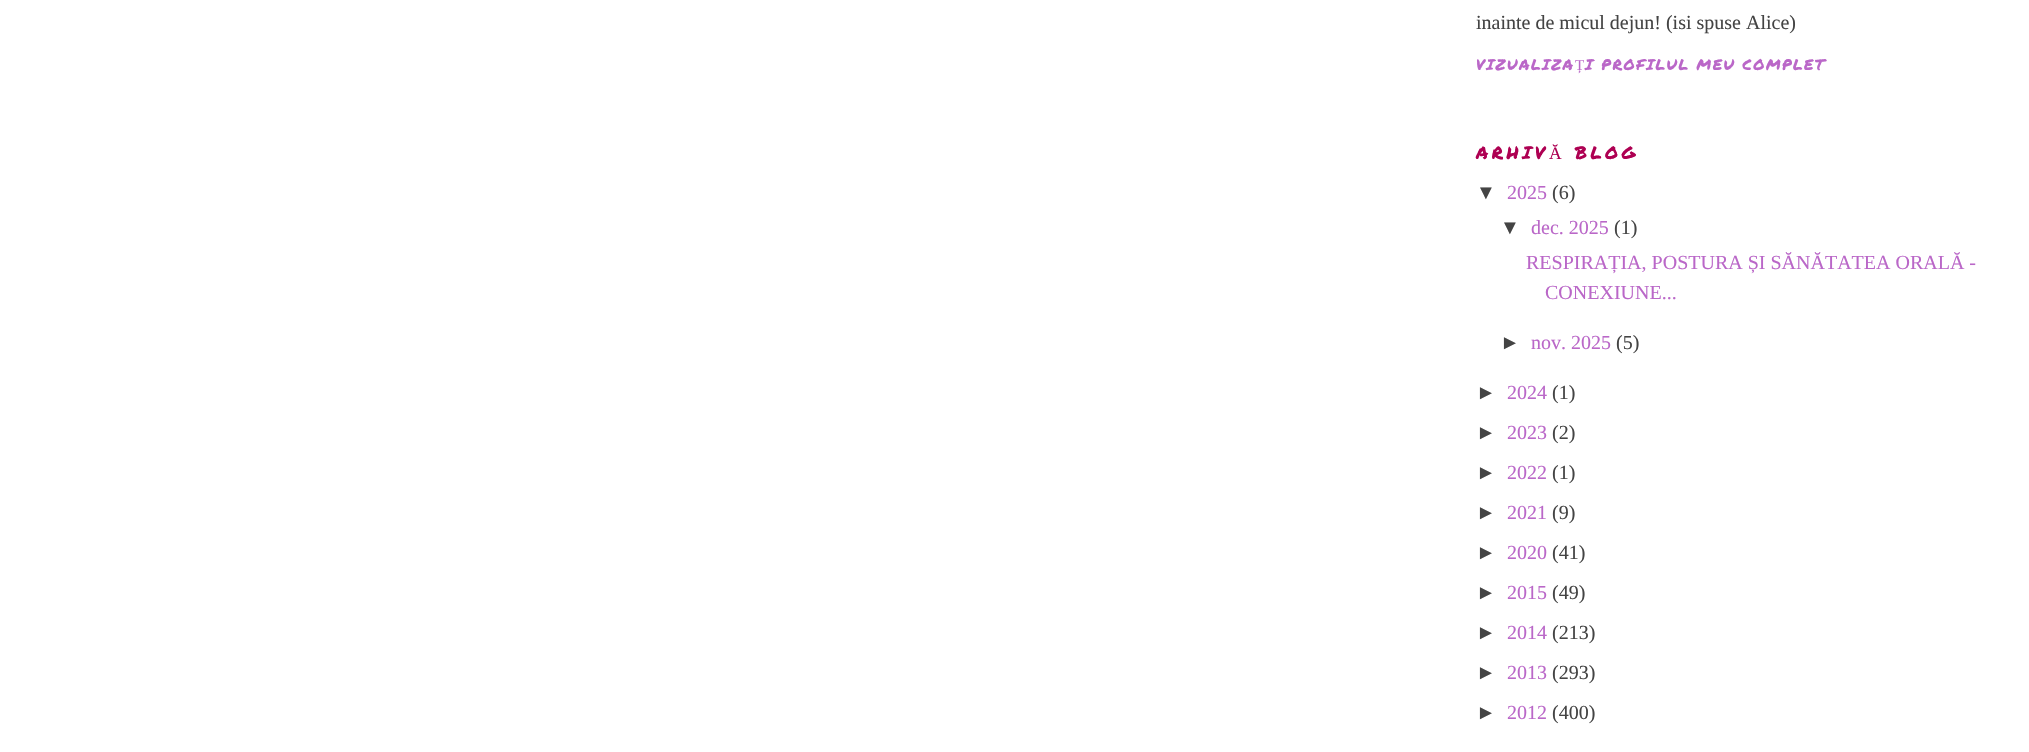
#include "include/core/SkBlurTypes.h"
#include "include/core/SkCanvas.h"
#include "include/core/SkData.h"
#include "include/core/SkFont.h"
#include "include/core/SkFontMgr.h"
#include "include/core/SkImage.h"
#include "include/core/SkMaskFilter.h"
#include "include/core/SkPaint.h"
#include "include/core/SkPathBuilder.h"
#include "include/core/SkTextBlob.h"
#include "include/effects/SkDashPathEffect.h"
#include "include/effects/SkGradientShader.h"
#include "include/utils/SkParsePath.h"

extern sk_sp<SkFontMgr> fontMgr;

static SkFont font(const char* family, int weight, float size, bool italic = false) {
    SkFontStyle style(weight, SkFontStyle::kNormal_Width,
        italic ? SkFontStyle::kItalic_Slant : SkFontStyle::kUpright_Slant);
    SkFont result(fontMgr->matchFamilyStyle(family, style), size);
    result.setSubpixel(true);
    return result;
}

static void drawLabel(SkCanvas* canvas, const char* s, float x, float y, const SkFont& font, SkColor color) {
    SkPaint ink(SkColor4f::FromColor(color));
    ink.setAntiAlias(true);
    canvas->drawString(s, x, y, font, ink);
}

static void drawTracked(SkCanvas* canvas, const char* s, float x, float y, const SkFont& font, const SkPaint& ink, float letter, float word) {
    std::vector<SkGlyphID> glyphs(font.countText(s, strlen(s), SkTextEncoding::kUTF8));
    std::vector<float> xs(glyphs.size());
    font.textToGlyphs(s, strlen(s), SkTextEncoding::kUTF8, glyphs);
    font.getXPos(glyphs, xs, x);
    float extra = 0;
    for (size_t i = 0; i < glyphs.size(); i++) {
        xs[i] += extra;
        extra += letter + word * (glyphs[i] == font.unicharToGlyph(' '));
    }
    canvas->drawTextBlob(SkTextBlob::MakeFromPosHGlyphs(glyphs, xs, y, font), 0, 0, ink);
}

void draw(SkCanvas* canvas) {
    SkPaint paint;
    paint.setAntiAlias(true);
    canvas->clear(0xFFFFFFFF);
    SkFont font1 = font("Liberation Serif", 400, 20);
    drawLabel(canvas, "inainte de micul dejun! (isi spuse Alice)", 1476, 29, font1, 0xFF444444);
    SkFont font2 = font("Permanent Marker", 400, 15);
    paint.setColor(0xFFBA67C8);
    drawTracked(canvas, "VIZUALIZA", 1476, 70, font2, paint, 1.5f, 0);
    SkFont font3 = font("Liberation Serif", 400, 15);
    drawTracked(canvas, "Ț", 1575, 70, font3, paint, 1.5f, 0);
    drawTracked(canvas, "I PROFILUL MEU COMPLET", 1585, 70, font2, paint, 1.5f, 0);
    SkFont font4 = font("Permanent Marker", 400, 17.5f);
    paint.setColor(0xFFAE0052);
    drawTracked(canvas, "ARHIV", 1476, 159, font4, paint, 3.5f, 0);
    SkFont font5 = font("Liberation Serif", 400, 17.5f);
    drawTracked(canvas, "Ă", 1549, 159, font5, paint, 3.5f, 0);
    drawTracked(canvas, "BLOG", 1575, 159, font4, paint, 3.5f, 0);
    SkFont font6 = font("Liberation Sans", 400, 20);
    drawLabel(canvas, "▼", 1476, 199, font6, 0xFF444444);
    drawLabel(canvas, "2025", 1507, 199, font1, 0xFFBA67C8);
    drawLabel(canvas, "(6)", 1552, 199, font1, 0xFF444444);
    drawLabel(canvas, "▼", 1500, 234, font6, 0xFF444444);
    drawLabel(canvas, "dec. 2025", 1531, 234, font1, 0xFFBA67C8);
    drawLabel(canvas, "(1)", 1614, 234, font1, 0xFF444444);
    drawLabel(canvas, "RESPIRAȚIA, POSTURA ȘI SĂNĂTATEA ORALĂ -", 1526, 269, font1, 0xFFBA67C8);
    drawLabel(canvas, "CONEXIUNE...", 1545, 299, font1, 0xFFBA67C8);
    drawLabel(canvas, "►", 1500, 349, font6, 0xFF444444);
    drawLabel(canvas, "nov. 2025", 1531, 349, font1, 0xFFBA67C8);
    drawLabel(canvas, "(5)", 1616, 349, font1, 0xFF444444);
    drawLabel(canvas, "►", 1476, 399, font6, 0xFF444444);
    drawLabel(canvas, "2024", 1507, 399, font1, 0xFFBA67C8);
    drawLabel(canvas, "(1)", 1552, 399, font1, 0xFF444444);
    drawLabel(canvas, "►", 1476, 439, font6, 0xFF444444);
    drawLabel(canvas, "2023", 1507, 439, font1, 0xFFBA67C8);
    drawLabel(canvas, "(2)", 1552, 439, font1, 0xFF444444);
    drawLabel(canvas, "►", 1476, 479, font6, 0xFF444444);
    drawLabel(canvas, "2022", 1507, 479, font1, 0xFFBA67C8);
    drawLabel(canvas, "(1)", 1552, 479, font1, 0xFF444444);
    drawLabel(canvas, "►", 1476, 519, font6, 0xFF444444);
    drawLabel(canvas, "2021", 1507, 519, font1, 0xFFBA67C8);
    drawLabel(canvas, "(9)", 1552, 519, font1, 0xFF444444);
    drawLabel(canvas, "►", 1476, 559, font6, 0xFF444444);
    drawLabel(canvas, "2020", 1507, 559, font1, 0xFFBA67C8);
    drawLabel(canvas, "(41)", 1552, 559, font1, 0xFF444444);
    drawLabel(canvas, "►", 1476, 599, font6, 0xFF444444);
    drawLabel(canvas, "2015", 1507, 599, font1, 0xFFBA67C8);
    drawLabel(canvas, "(49)", 1552, 599, font1, 0xFF444444);
    drawLabel(canvas, "►", 1476, 639, font6, 0xFF444444);
    drawLabel(canvas, "2014", 1507, 639, font1, 0xFFBA67C8);
    drawLabel(canvas, "(213)", 1552, 639, font1, 0xFF444444);
    drawLabel(canvas, "►", 1476, 679, font6, 0xFF444444);
    drawLabel(canvas, "2013", 1507, 679, font1, 0xFFBA67C8);
    drawLabel(canvas, "(293)", 1552, 679, font1, 0xFF444444);
    drawLabel(canvas, "►", 1476, 719, font6, 0xFF444444);
    drawLabel(canvas, "2012", 1507, 719, font1, 0xFFBA67C8);
    drawLabel(canvas, "(400)", 1552, 719, font1, 0xFF444444);
}
